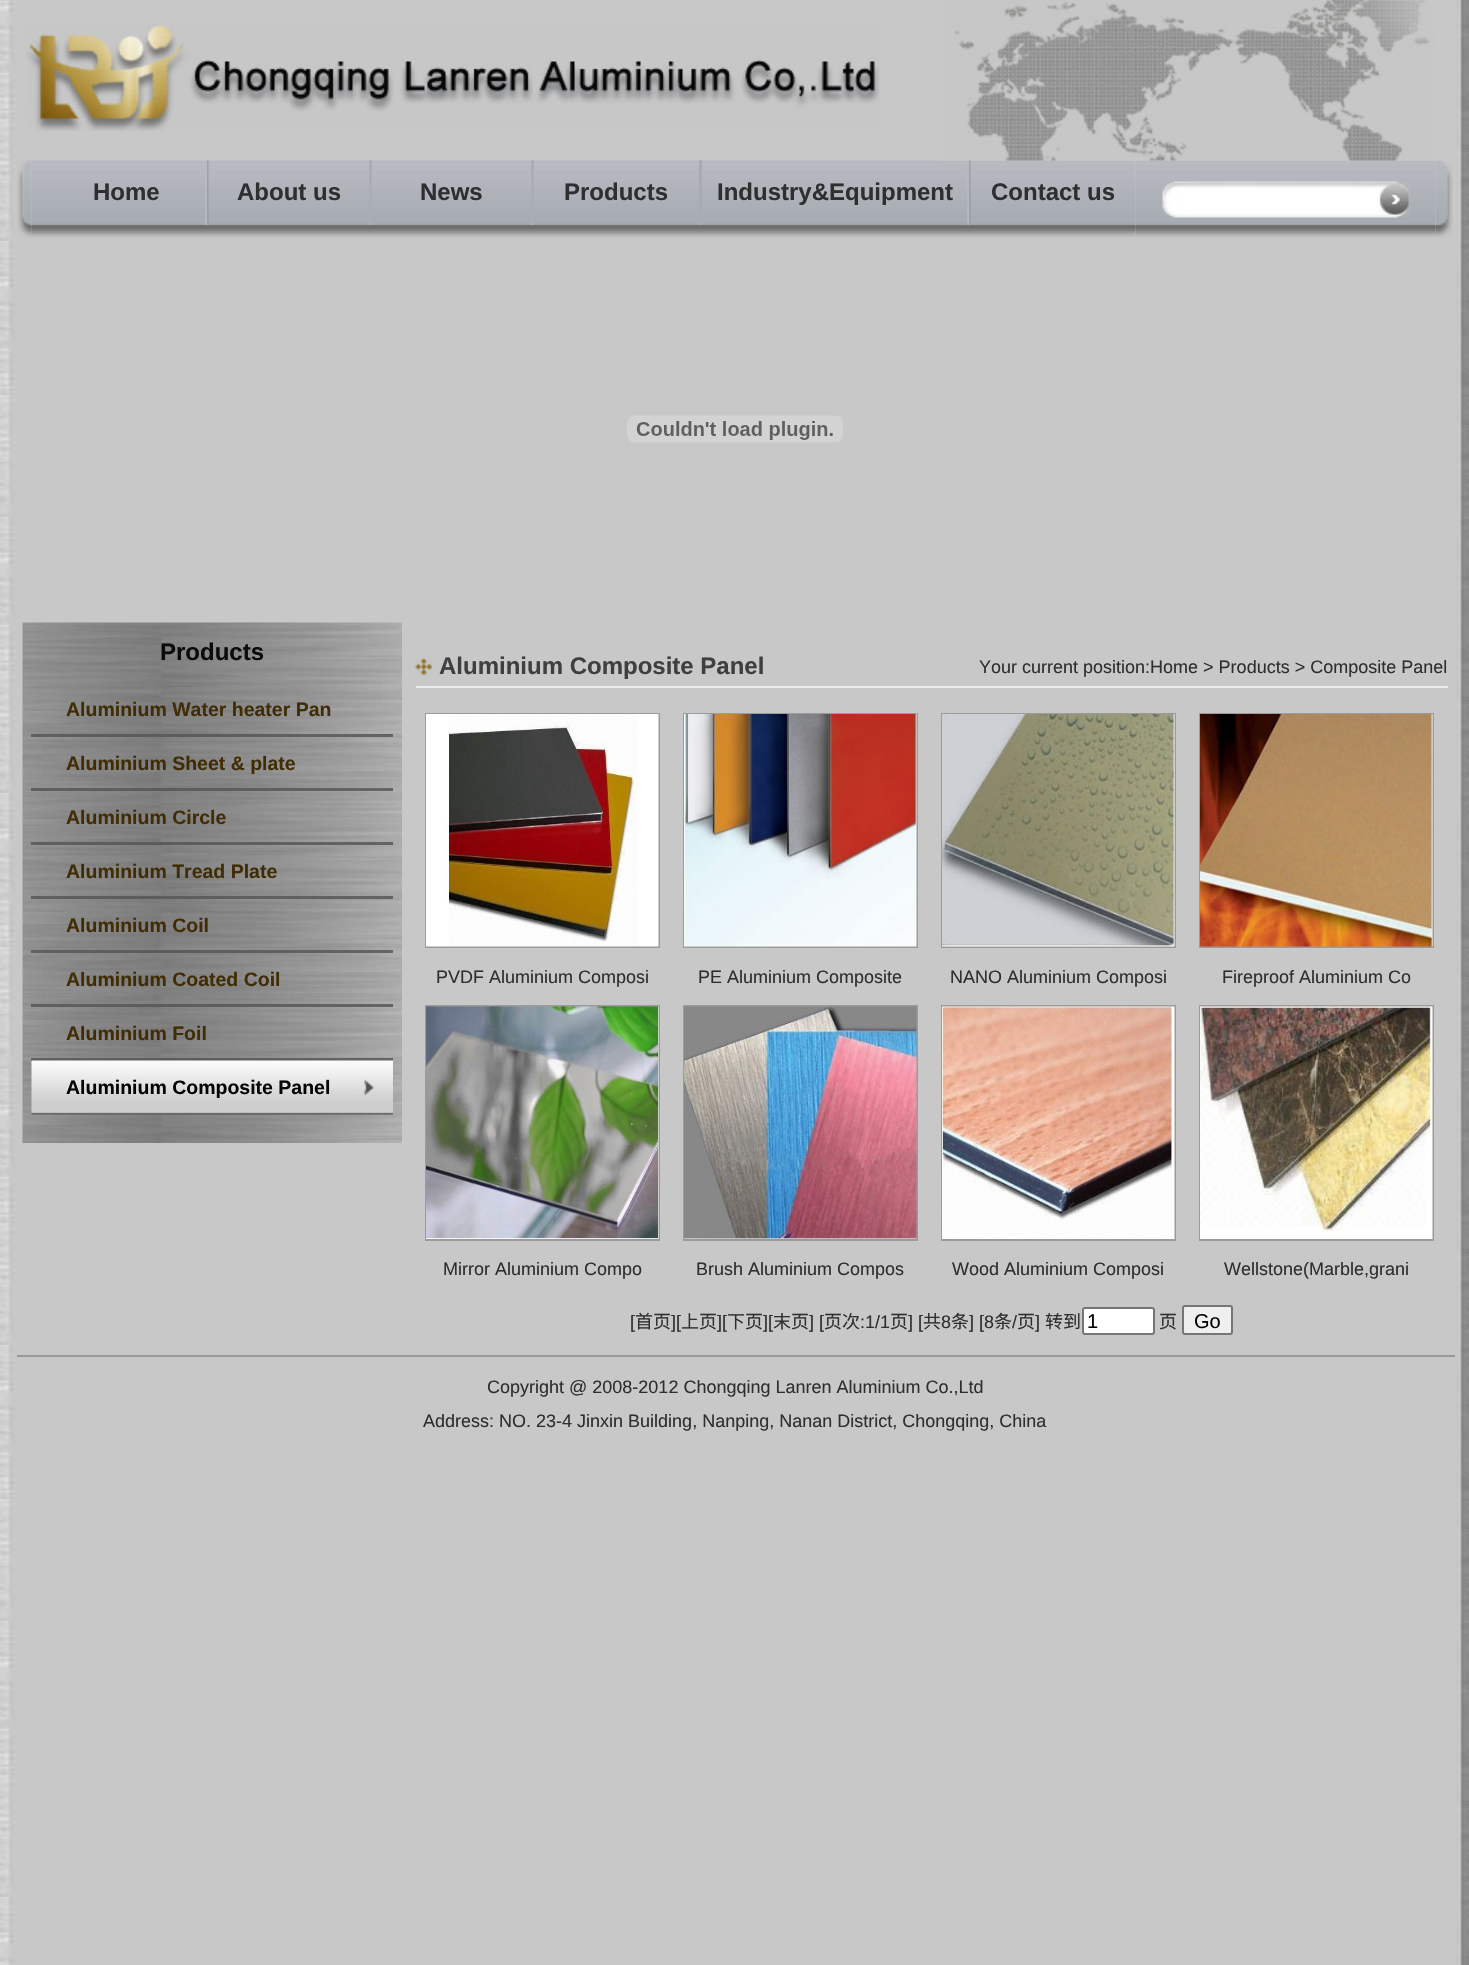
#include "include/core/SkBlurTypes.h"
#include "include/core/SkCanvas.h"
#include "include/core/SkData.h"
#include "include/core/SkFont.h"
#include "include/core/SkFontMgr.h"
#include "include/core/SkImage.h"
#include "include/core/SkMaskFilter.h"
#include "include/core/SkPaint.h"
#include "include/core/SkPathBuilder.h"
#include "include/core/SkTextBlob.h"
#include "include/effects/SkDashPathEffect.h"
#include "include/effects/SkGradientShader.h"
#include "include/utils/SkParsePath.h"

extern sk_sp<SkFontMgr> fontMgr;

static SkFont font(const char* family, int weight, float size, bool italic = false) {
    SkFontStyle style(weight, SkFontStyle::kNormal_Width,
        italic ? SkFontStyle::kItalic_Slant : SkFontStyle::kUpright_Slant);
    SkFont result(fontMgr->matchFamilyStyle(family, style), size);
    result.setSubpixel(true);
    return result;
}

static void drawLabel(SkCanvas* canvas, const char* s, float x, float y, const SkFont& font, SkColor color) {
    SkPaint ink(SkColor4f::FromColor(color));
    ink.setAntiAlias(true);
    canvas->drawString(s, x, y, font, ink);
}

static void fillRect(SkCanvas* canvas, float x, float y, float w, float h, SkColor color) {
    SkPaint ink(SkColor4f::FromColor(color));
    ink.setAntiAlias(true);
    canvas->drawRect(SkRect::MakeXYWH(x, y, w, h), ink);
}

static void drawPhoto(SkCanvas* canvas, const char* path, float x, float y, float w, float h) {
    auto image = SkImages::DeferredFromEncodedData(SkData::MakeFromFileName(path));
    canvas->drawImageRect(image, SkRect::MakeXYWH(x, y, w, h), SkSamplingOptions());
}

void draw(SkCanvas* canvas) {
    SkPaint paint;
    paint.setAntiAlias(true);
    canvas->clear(0xFFFFFFFF);
    drawPhoto(canvas, "assets/img1.png", 0, 0, 1469, 1965);
    drawPhoto(canvas, "assets/img2.png", 26, 23, 854, 108);
    drawPhoto(canvas, "assets/img5.png", 31, 160, 1105, 78);
    drawPhoto(canvas, "assets/img8.png", 1135, 160, 301, 78);
    drawPhoto(canvas, "assets/img3.png", 942, 0, 493, 161);
    drawPhoto(canvas, "assets/img4.png", 17, 160, 15, 78);
    SkFont font1 = font("Liberation Sans", 700, 24);
    drawLabel(canvas, "Home", 93, 200, font1, 0xFF2F2F30);
    drawPhoto(canvas, "assets/img6.png", 205, 160, 4, 65);
    drawLabel(canvas, "About us", 237, 200, font1, 0xFF2F2F30);
    fillRect(canvas, 369, 160, 3, 65, 0xFFAAADB4);
    drawLabel(canvas, "News", 420, 200, font1, 0xFF2F2F30);
    fillRect(canvas, 531, 160, 3, 65, 0xFFAAADB4);
    drawLabel(canvas, "Products", 564, 200, font1, 0xFF2F2F30);
    fillRect(canvas, 699, 160, 3, 65, 0xFFA8ABB2);
    drawLabel(canvas, "Industry&Equipment", 717, 200, font1, 0xFF2F2F30);
    drawPhoto(canvas, "assets/img7.png", 967, 160, 4, 65);
    drawLabel(canvas, "Contact us", 991, 200, font1, 0xFF2F2F30);
    drawPhoto(canvas, "assets/img9.png", 1162, 181, 215, 37);
    fillRect(canvas, 1172, 189, 4, 22, 0xFFFFFFFF);
    drawPhoto(canvas, "assets/img10.png", 1377, 181, 33, 37);
    drawPhoto(canvas, "assets/img11.png", 1435, 160, 18, 78);
    drawPhoto(canvas, "assets/img12.png", 627, 415, 216, 28);
    drawPhoto(canvas, "assets/img13.png", 22, 622, 380, 521);
    drawLabel(canvas, "Products", 160, 660, font1, 0xFF0B0B0B);
    fillRect(canvas, 31, 734, 362, 3, 0xCF535455);
    SkFont font2 = font("Liberation Sans", 700, 19.5f);
    drawLabel(canvas, "Aluminium Water heater Pan", 66, 716, font2, 0xFF412D05);
    fillRect(canvas, 31, 788, 362, 3, 0xCF535455);
    drawLabel(canvas, "Aluminium Sheet & plate", 66, 770, font2, 0xFF412D05);
    fillRect(canvas, 31, 842, 362, 3, 0xCF535455);
    drawLabel(canvas, "Aluminium Circle", 66, 824, font2, 0xFF412D05);
    fillRect(canvas, 31, 896, 362, 3, 0xCF535455);
    drawLabel(canvas, "Aluminium Tread Plate", 66, 878, font2, 0xFF412D05);
    fillRect(canvas, 31, 950, 362, 3, 0xCF535455);
    drawLabel(canvas, "Aluminium Coil", 66, 932, font2, 0xFF412D05);
    fillRect(canvas, 31, 1004, 362, 3, 0xCF535455);
    drawLabel(canvas, "Aluminium Coated Coil", 66, 986, font2, 0xFF412D05);
    fillRect(canvas, 31, 1058, 362, 3, 0xCF535455);
    drawLabel(canvas, "Aluminium Foil", 66, 1040, font2, 0xFF412D05);
    drawPhoto(canvas, "assets/img14.png", 31, 1060, 362, 55);
    drawLabel(canvas, "Aluminium Composite Panel", 66, 1094, font2, 0xFF050505);
    fillRect(canvas, 416, 686, 1032, 2, 0xFFEDECEC);
    drawPhoto(canvas, "assets/img15.png", 415, 658, 17, 17);
    drawLabel(canvas, "Aluminium Composite Panel", 439, 674, font1, 0xFF403E3F);
    SkFont font3 = font("Liberation Sans", 400, 18);
    drawLabel(canvas, "Your current position:Home > Products > Composite Panel", 979, 673, font3, 0xFF2F2F30);
    paint.setStroke(true);
    paint.setStrokeWidth(2);
    paint.setColor(0xFF9C9B9B);
    canvas->drawRect(SkRect::MakeXYWH(426, 714, 233, 233), paint);
    drawPhoto(canvas, "assets/img16.png", 426, 714, 233, 233);
    drawLabel(canvas, "PVDF Aluminium Composi", 436, 983, font3, 0xFF2F2F30);
    canvas->drawRect(SkRect::MakeXYWH(684, 714, 233, 233), paint);
    drawPhoto(canvas, "assets/img17.png", 684, 714, 233, 233);
    drawLabel(canvas, "PE Aluminium Composite", 698, 983, font3, 0xFF2F2F30);
    canvas->drawRect(SkRect::MakeXYWH(942, 714, 233, 233), paint);
    drawPhoto(canvas, "assets/img18.png", 942, 714, 233, 233);
    drawLabel(canvas, "NANO Aluminium Composi", 950, 983, font3, 0xFF2F2F30);
    canvas->drawRect(SkRect::MakeXYWH(1200, 714, 233, 233), paint);
    drawPhoto(canvas, "assets/img19.png", 1200, 714, 233, 233);
    drawLabel(canvas, "Fireproof Aluminium Co", 1222, 983, font3, 0xFF2F2F30);
    canvas->drawRect(SkRect::MakeXYWH(426, 1006, 233, 234), paint);
    drawPhoto(canvas, "assets/img20.png", 426, 1006, 233, 233);
    drawLabel(canvas, "Mirror Aluminium Compo", 443, 1275, font3, 0xFF2F2F30);
    canvas->drawRect(SkRect::MakeXYWH(684, 1006, 233, 234), paint);
    drawPhoto(canvas, "assets/img21.png", 684, 1006, 233, 233);
    drawLabel(canvas, "Brush Aluminium Compos", 696, 1275, font3, 0xFF2F2F30);
    canvas->drawRect(SkRect::MakeXYWH(942, 1006, 233, 234), paint);
    drawPhoto(canvas, "assets/img22.png", 942, 1006, 233, 233);
    drawLabel(canvas, "Wood Aluminium Composi", 952, 1275, font3, 0xFF2F2F30);
    canvas->drawRect(SkRect::MakeXYWH(1200, 1006, 233, 234), paint);
    drawPhoto(canvas, "assets/img23.png", 1200, 1006, 233, 233);
    drawLabel(canvas, "Wellstone(Marble,grani", 1224, 1275, font3, 0xFF2F2F30);
    drawLabel(canvas, "[", 630, 1328, font3, 0xFF2F2F30);
    SkFont font4 = font("Noto Sans CJK SC", 400, 18);
    drawLabel(canvas, "首页", 635, 1328, font4, 0xFF2F2F30);
    drawLabel(canvas, "][", 671, 1328, font3, 0xFF2F2F30);
    drawLabel(canvas, "上页", 681, 1328, font4, 0xFF2F2F30);
    drawLabel(canvas, "][", 717, 1328, font3, 0xFF2F2F30);
    drawLabel(canvas, "下页", 727, 1328, font4, 0xFF2F2F30);
    drawLabel(canvas, "][", 763, 1328, font3, 0xFF2F2F30);
    drawLabel(canvas, "末页", 773, 1328, font4, 0xFF2F2F30);
    drawLabel(canvas, "] [", 809, 1328, font3, 0xFF2F2F30);
    drawLabel(canvas, "页次", 824, 1328, font4, 0xFF2F2F30);
    drawLabel(canvas, ":1/1", 860, 1328, font3, 0xFF2F2F30);
    drawLabel(canvas, "页", 890, 1328, font4, 0xFF2F2F30);
    drawLabel(canvas, "] [", 908, 1328, font3, 0xFF2F2F30);
    drawLabel(canvas, "共", 923, 1328, font4, 0xFF2F2F30);
    drawLabel(canvas, "8", 941, 1328, font3, 0xFF2F2F30);
    drawLabel(canvas, "条", 951, 1328, font4, 0xFF2F2F30);
    drawLabel(canvas, "] [8", 969, 1328, font3, 0xFF2F2F30);
    drawLabel(canvas, "条", 994, 1328, font4, 0xFF2F2F30);
    drawLabel(canvas, "/", 1012, 1328, font3, 0xFF2F2F30);
    drawLabel(canvas, "页", 1017, 1328, font4, 0xFF2F2F30);
    drawLabel(canvas, "]", 1035, 1328, font3, 0xFF2F2F30);
    drawLabel(canvas, "转到", 1045, 1328, font4, 0xFF2F2F30);
    paint.setStroke(false);
    paint.setColor(0xFFFFFFFF);
    canvas->drawRoundRect(SkRect::MakeXYWH(1083, 1308, 71, 26), 2, 2, paint);
    paint.setStroke(true);
    paint.setColor(0xFF767676);
    canvas->drawRoundRect(SkRect::MakeXYWH(1083, 1308, 71, 26), 2, 2, paint);
    SkFont font5 = font("Liberation Sans", 400, 20);
    drawLabel(canvas, "1", 1087, 1328, font5, 0xFF050505);
    drawLabel(canvas, "页", 1159, 1328, font4, 0xFF2F2F30);
    paint.setStroke(false);
    paint.setColor(0xFFEFEFEF);
    canvas->drawRoundRect(SkRect::MakeXYWH(1183, 1306, 49, 28), 2, 2, paint);
    paint.setStroke(true);
    paint.setColor(0xFF767676);
    canvas->drawRoundRect(SkRect::MakeXYWH(1183, 1306, 49, 28), 2, 2, paint);
    drawLabel(canvas, "Go", 1194, 1328, font5, 0xFF050505);
    fillRect(canvas, 17, 1355, 1438, 2, 0xFF9A9A9B);
    drawLabel(canvas, "Copyright @ 2008-2012 Chongqing Lanren Aluminium Co.,Ltd", 487, 1393, font3, 0xFF2F2F30);
    drawLabel(canvas, "Address: NO. 23-4 Jinxin Building, Nanping, Nanan District, Chongqing, China", 423, 1427, font3, 0xFF2F2F30);
}
